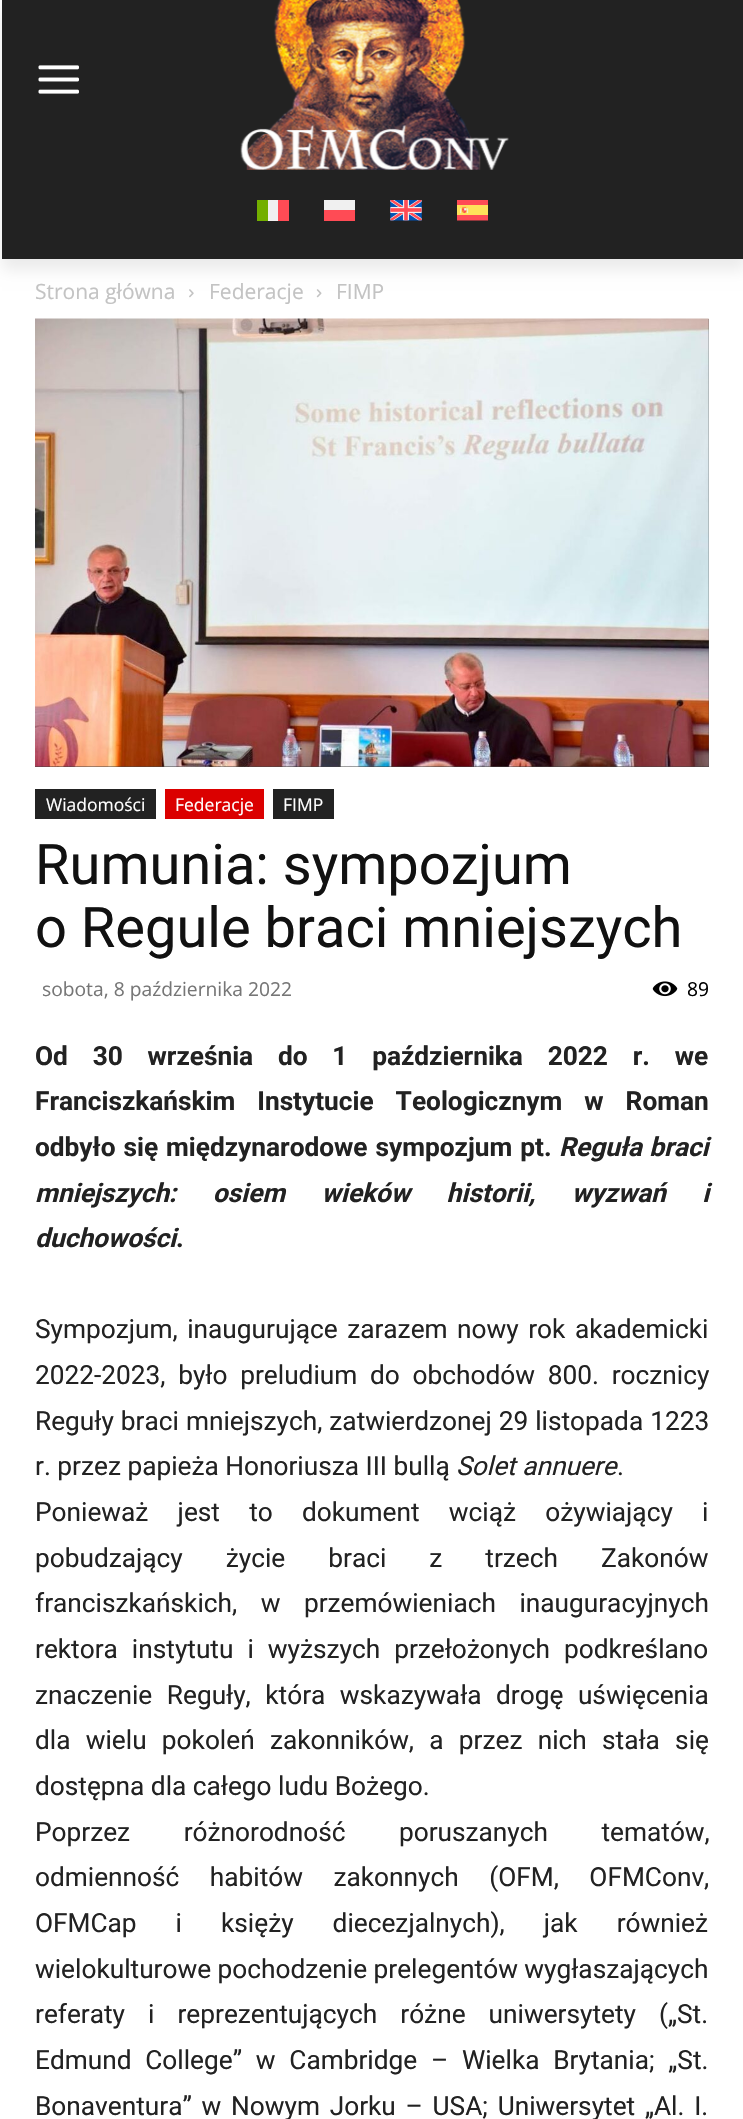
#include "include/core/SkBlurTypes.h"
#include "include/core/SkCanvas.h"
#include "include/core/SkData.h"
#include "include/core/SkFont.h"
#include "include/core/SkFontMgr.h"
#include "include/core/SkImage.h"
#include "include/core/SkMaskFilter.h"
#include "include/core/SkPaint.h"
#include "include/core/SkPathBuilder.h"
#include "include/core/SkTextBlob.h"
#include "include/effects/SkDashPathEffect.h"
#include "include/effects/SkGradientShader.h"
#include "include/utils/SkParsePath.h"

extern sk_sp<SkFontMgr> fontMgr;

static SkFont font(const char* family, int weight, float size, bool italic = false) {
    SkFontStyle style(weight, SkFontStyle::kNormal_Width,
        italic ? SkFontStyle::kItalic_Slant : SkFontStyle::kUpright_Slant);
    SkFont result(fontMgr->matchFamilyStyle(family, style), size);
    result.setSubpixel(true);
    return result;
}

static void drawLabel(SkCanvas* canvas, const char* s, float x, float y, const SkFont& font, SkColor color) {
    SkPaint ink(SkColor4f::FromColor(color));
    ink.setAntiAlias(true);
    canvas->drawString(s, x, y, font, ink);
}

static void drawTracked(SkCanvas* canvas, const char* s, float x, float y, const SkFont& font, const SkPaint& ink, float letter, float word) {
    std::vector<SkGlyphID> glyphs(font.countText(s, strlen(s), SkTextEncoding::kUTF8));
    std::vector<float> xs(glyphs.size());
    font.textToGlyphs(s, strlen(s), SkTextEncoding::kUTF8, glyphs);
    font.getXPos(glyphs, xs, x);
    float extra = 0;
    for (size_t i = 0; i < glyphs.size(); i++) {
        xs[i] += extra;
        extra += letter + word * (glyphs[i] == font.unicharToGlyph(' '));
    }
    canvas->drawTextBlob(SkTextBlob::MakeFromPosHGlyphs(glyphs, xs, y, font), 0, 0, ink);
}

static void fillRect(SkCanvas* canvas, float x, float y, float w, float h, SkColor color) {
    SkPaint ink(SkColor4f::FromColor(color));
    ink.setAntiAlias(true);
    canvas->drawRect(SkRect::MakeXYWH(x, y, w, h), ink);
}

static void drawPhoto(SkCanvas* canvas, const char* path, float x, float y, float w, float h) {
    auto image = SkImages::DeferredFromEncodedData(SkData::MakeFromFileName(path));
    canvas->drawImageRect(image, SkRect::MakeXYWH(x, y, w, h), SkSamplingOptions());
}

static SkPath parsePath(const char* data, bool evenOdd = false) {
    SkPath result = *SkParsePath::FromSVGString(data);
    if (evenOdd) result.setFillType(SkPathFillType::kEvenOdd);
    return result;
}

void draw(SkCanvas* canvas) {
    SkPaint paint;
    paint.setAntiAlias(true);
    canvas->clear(0xFFFFFFFF);
    fillRect(canvas, 2, 0, 741, 259, 0xFF222222);
    drawPhoto(canvas, "assets/img1.png", 38, 65, 41, 29);
    drawPhoto(canvas, "assets/img2.png", 240, 0, 269, 170);
    fillRect(canvas, 257, 200, 11, 21, 0xFF73AF00);
    fillRect(canvas, 268, 200, 10, 21, 0xFFF0F0F0);
    fillRect(canvas, 278, 200, 11, 21, 0xFFFF4B55);
    fillRect(canvas, 324, 200, 31, 10, 0xFFF0F0F0);
    fillRect(canvas, 324, 210, 31, 11, 0xFFFF4B55);
    drawPhoto(canvas, "assets/img3.png", 390, 200, 32, 21);
    drawPhoto(canvas, "assets/img4.png", 457, 200, 31, 21);
    drawPhoto(canvas, "assets/img5.png", 189, 289, 5, 9);
    drawPhoto(canvas, "assets/img6.png", 316, 289, 6, 9);
    canvas->save();
    canvas->clipPath(parsePath("M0 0H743V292H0ZM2 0H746V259H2Z", true), true);
    paint.setColor(0x14000000);
    paint.setMaskFilter(SkMaskFilter::MakeBlur(kNormal_SkBlurStyle, 7));
    canvas->drawRect(SkRect::MakeXYWH(2, 11, 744, 259), paint);
    paint.setMaskFilter(nullptr);
    canvas->restore();
    SkFont font1 = font("Open Sans", 400, 21);
    drawLabel(canvas, "Strona główna", 35, 299, font1, 0xFFC3C3C3);
    drawLabel(canvas, "Federacje", 209, 299, font1, 0xFFC3C3C3);
    drawLabel(canvas, "FIMP", 336, 299, font1, 0xFFC3C3C3);
    fillRect(canvas, 35, 319, 674, 448, 0xFF444444);
    drawPhoto(canvas, "assets/img7.png", 35, 318, 674, 449);
    fillRect(canvas, 35, 789, 121, 30, 0xFF222222);
    SkFont font2 = font("Open Sans", 400, 17.5f);
    drawLabel(canvas, "Wiadomości", 46, 811, font2, 0xFFFFFFFF);
    fillRect(canvas, 165, 789, 99, 30, 0xFFDB0000);
    drawLabel(canvas, "Federacje", 175, 811, font2, 0xFFFFFFFF);
    fillRect(canvas, 273, 789, 61, 30, 0xFF222222);
    drawLabel(canvas, "FIMP", 283, 811, font2, 0xFFFFFFFF);
    SkFont font3 = font("Roboto", 400, 56);
    drawLabel(canvas, "Rumunia: sympozjum", 35, 884, font3, 0xFF111111);
    drawLabel(canvas, "o Regule braci mniejszych", 35, 947, font3, 0xFF111111);
    SkFont font4 = font("Open Sans", 400, 19.25f);
    drawLabel(canvas, "sobota, 8 października 2022", 42, 996, font4, 0xFF767676);
    drawPhoto(canvas, "assets/img8.png", 652, 981, 26, 16);
    drawLabel(canvas, "89", 687, 996, font4, 0xFF000000);
    SkFont font5 = font("Roboto", 700, 26.25f);
    paint.setColor(0xFF222222);
    drawTracked(canvas, "Od 30 września do 1 października 2022 r. we", 35, 1065, font5, paint, 0, 18.25f);
    drawTracked(canvas, "Franciszkańskim Instytucie Teologicznym w Roman", 35, 1110, font5, paint, 0, 15.5f);
    drawTracked(canvas, "odbyło się międzynarodowe sympozjum pt.", 35, 1156, font5, paint, 0, 1.5f);
    SkFont font6 = font("Roboto", 700, 26.25f, true);
    drawTracked(canvas, "Reguła braci", 559, 1156, font6, paint, 0, 1);
    drawTracked(canvas, "mniejszych: osiem wieków historii, wyzwań i", 35, 1202, font6, paint, 0, 30);
    drawLabel(canvas, "duchowości", 35, 1247, font6, 0xFF222222);
    drawLabel(canvas, ".", 176, 1247, font5, 0xFF222222);
    SkFont font7 = font("Roboto", 400, 26.25f);
    drawTracked(canvas, "Sympozjum, inaugurujące zarazem nowy rok akademicki", 35, 1338, font7, paint, 0, 3);
    drawTracked(canvas, "2022-2023, było preludium do obchodów 800. rocznicy", 35, 1384, font7, paint, 0, 6.25f);
    drawTracked(canvas, "Reguły braci mniejszych, zatwierdzonej 29 listopada 1223", 35, 1430, font7, paint, 0, 0.5f);
    drawLabel(canvas, "r. przez papieża Honoriusza III bullą", 35, 1475, font7, 0xFF222222);
    SkFont font8 = font("Roboto", 400, 26.25f, true);
    drawLabel(canvas, "Solet annuere", 456, 1475, font8, 0xFF222222);
    drawLabel(canvas, ".", 617, 1475, font7, 0xFF222222);
    drawTracked(canvas, "Ponieważ jest to dokument wciąż ożywiający i", 35, 1521, font7, paint, 0, 22.75f);
    drawTracked(canvas, "pobudzający życie braci z trzech Zakonów", 35, 1567, font7, paint, 0, 36.5f);
    drawTracked(canvas, "franciszkańskich, w przemówieniach inauguracyjnych", 35, 1612, font7, paint, 0, 17);
    drawTracked(canvas, "rektora instytutu i wyższych przełożonych podkreślano", 35, 1658, font7, paint, 0, 7.5f);
    drawTracked(canvas, "znaczenie Reguły, która wskazywała drogę uświęcenia", 35, 1704, font7, paint, 0, 8);
    drawTracked(canvas, "dla wielu pokoleń zakonników, a przez nich stała się", 35, 1749, font7, paint, 0, 8.75f);
    drawLabel(canvas, "dostępna dla całego ludu Bożego.", 35, 1795, font7, 0xFF222222);
    drawTracked(canvas, "Poprzez różnorodność poruszanych tematów,", 35, 1841, font7, paint, 0, 47);
    drawTracked(canvas, "odmienność habitów zakonnych (OFM, OFMConv,", 35, 1886, font7, paint, 0, 24);
    drawTracked(canvas, "OFMCap i księży diecezjalnych), jak również", 35, 1932, font7, paint, 0, 32.5f);
    drawLabel(canvas, "wielokulturowe pochodzenie prelegentów wygłaszających", 35, 1978, font7, 0xFF222222);
    drawTracked(canvas, "referaty i reprezentujących różne uniwersytety („St.", 35, 2023, font7, paint, 0, 16.5f);
    drawTracked(canvas, "Edmund College” w Cambridge – Wielka Brytania; „St.", 35, 2069, font7, paint, 0, 7.25f);
    drawTracked(canvas, "Bonaventura” w Nowym Jorku – USA; Uniwersytet „Al. I.", 35, 2115, font7, paint, 0, 3.25f);
}
